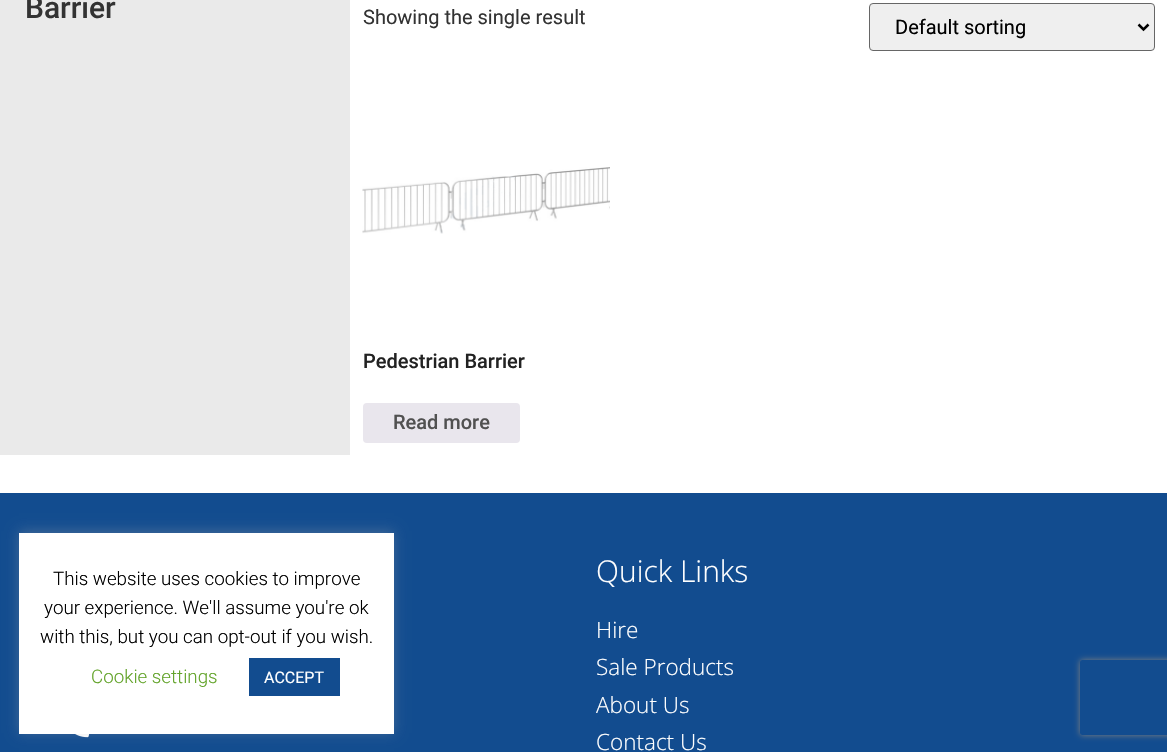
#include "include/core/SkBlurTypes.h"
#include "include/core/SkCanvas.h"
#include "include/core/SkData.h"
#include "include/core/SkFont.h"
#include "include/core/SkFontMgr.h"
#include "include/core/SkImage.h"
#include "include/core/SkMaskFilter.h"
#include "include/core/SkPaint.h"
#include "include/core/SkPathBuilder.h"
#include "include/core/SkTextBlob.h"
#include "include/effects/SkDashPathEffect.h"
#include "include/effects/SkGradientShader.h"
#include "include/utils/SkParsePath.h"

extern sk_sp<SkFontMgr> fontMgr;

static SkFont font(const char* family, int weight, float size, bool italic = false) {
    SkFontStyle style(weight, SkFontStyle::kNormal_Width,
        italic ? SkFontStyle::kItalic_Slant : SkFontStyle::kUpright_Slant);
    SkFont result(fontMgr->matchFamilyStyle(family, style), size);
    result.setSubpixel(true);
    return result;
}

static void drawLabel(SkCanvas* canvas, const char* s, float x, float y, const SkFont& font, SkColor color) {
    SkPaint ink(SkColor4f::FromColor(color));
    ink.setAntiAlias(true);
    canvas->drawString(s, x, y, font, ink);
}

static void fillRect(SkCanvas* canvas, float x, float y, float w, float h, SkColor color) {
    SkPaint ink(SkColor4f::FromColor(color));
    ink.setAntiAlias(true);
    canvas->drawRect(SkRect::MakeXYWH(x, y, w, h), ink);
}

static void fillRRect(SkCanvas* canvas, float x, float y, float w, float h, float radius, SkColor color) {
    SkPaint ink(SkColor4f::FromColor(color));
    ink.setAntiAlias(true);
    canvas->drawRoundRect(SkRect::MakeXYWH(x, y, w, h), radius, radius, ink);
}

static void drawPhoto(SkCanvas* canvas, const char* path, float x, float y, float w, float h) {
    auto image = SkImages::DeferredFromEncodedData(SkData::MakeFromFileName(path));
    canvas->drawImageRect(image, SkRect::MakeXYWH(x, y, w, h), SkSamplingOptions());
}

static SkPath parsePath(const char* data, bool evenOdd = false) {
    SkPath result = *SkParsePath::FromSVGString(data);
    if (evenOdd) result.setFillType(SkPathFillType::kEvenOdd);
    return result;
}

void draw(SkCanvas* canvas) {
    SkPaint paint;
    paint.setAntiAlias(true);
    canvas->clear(0xFFFFFFFF);
    fillRect(canvas, 0, 0, 350, 455, 0xFFEAEAEA);
    SkFont font1 = font("Roboto", 500, 30);
    drawLabel(canvas, "Barrier", 25, 18, font1, 0xFF333333);
    SkFont font2 = font("Roboto", 400, 20);
    drawLabel(canvas, "Showing the single result", 363, 24, font2, 0xFF333333);
    paint.setColor(0xFFEFEFEF);
    canvas->drawRoundRect(SkRect::MakeXYWH(869.5f, 3.5f, 285, 47), 3.5f, 3.5f, paint);
    paint.setStroke(true);
    paint.setStrokeWidth(1);
    paint.setColor(0xFF666666);
    canvas->drawRoundRect(SkRect::MakeXYWH(869.5f, 3.5f, 285, 47), 3.5f, 3.5f, paint);
    paint.setStrokeWidth(2.5f);
    paint.setColor(0xFF000000);
    canvas->drawPath(parsePath("M1138.5 24.5L1143.5 29.5L1148.5 24.5"), paint);
    drawLabel(canvas, "Default sorting", 895, 34, font2, 0xFF000000);
    drawPhoto(canvas, "assets/img1.png", 362, 167, 248, 67);
    SkFont font3 = font("Roboto", 500, 20);
    drawLabel(canvas, "Pedestrian Barrier", 363, 368, font3, 0xFF222222);
    fillRRect(canvas, 363, 403, 157, 40, 4, 0xFFE9E6ED);
    drawLabel(canvas, "Read more", 393, 429, font3, 0xFF515151);
    fillRect(canvas, 0, 493, 1167, 259, 0xFF124C8F);
    drawPhoto(canvas, "assets/img2.png", 75, 734, 15, 4);
    paint.setStroke(false);
    paint.setColor(0x4DACABAB);
    paint.setMaskFilter(SkMaskFilter::MakeBlur(kNormal_SkBlurStyle, 6));
    canvas->drawRect(SkRect::MakeXYWH(19, 531, 375, 202), paint);
    paint.setMaskFilter(nullptr);
    fillRect(canvas, 19, 533, 375, 201, 0xFFFFFFFF);
    SkFont font4 = font("Roboto", 300, 18.75f);
    drawLabel(canvas, "This website uses cookies to improve", 53, 585, font4, 0xFF000000);
    drawLabel(canvas, "your experience. We'll assume you're ok", 44, 614, font4, 0xFF000000);
    drawLabel(canvas, "with this, but you can opt-out if you wish.", 40, 643, font4, 0xFF000000);
    drawLabel(canvas, "Cookie settings", 91, 683, font4, 0xFF62A329);
    fillRect(canvas, 249, 658, 91, 38, 0xFF124C8F);
    SkFont font5 = font("Roboto", 400, 16);
    drawLabel(canvas, "ACCEPT", 264, 683, font5, 0xFFFFFFFF);
    SkFont font6 = font("Open Sans", 300, 30);
    drawLabel(canvas, "Quick Links", 596, 582, font6, 0xFFFFFFFF);
    SkFont font7 = font("Open Sans", 300, 22.5f);
    drawLabel(canvas, "Hire", 596, 638, font7, 0xFFFFFFFF);
    drawLabel(canvas, "Sale Products", 596, 675, font7, 0xFFFFFFFF);
    drawLabel(canvas, "About Us", 596, 713, font7, 0xFFFFFFFF);
    drawLabel(canvas, "Contact Us", 596, 750, font7, 0xFFFFFFFF);
    canvas->save();
    canvas->clipPath(parsePath("M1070 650H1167V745H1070ZM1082.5 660H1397.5C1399 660 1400 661 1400 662.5V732.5C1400 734 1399 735 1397.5 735H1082.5C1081 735 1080 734 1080 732.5V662.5C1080 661 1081 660 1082.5 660Z", true), true);
    paint.setColor(0xFF808080);
    paint.setMaskFilter(SkMaskFilter::MakeBlur(kNormal_SkBlurStyle, 3));
    canvas->drawRoundRect(SkRect::MakeXYWH(1080, 660, 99, 75), 2.5f, 2.5f, paint);
    paint.setMaskFilter(nullptr);
    canvas->restore();
}
